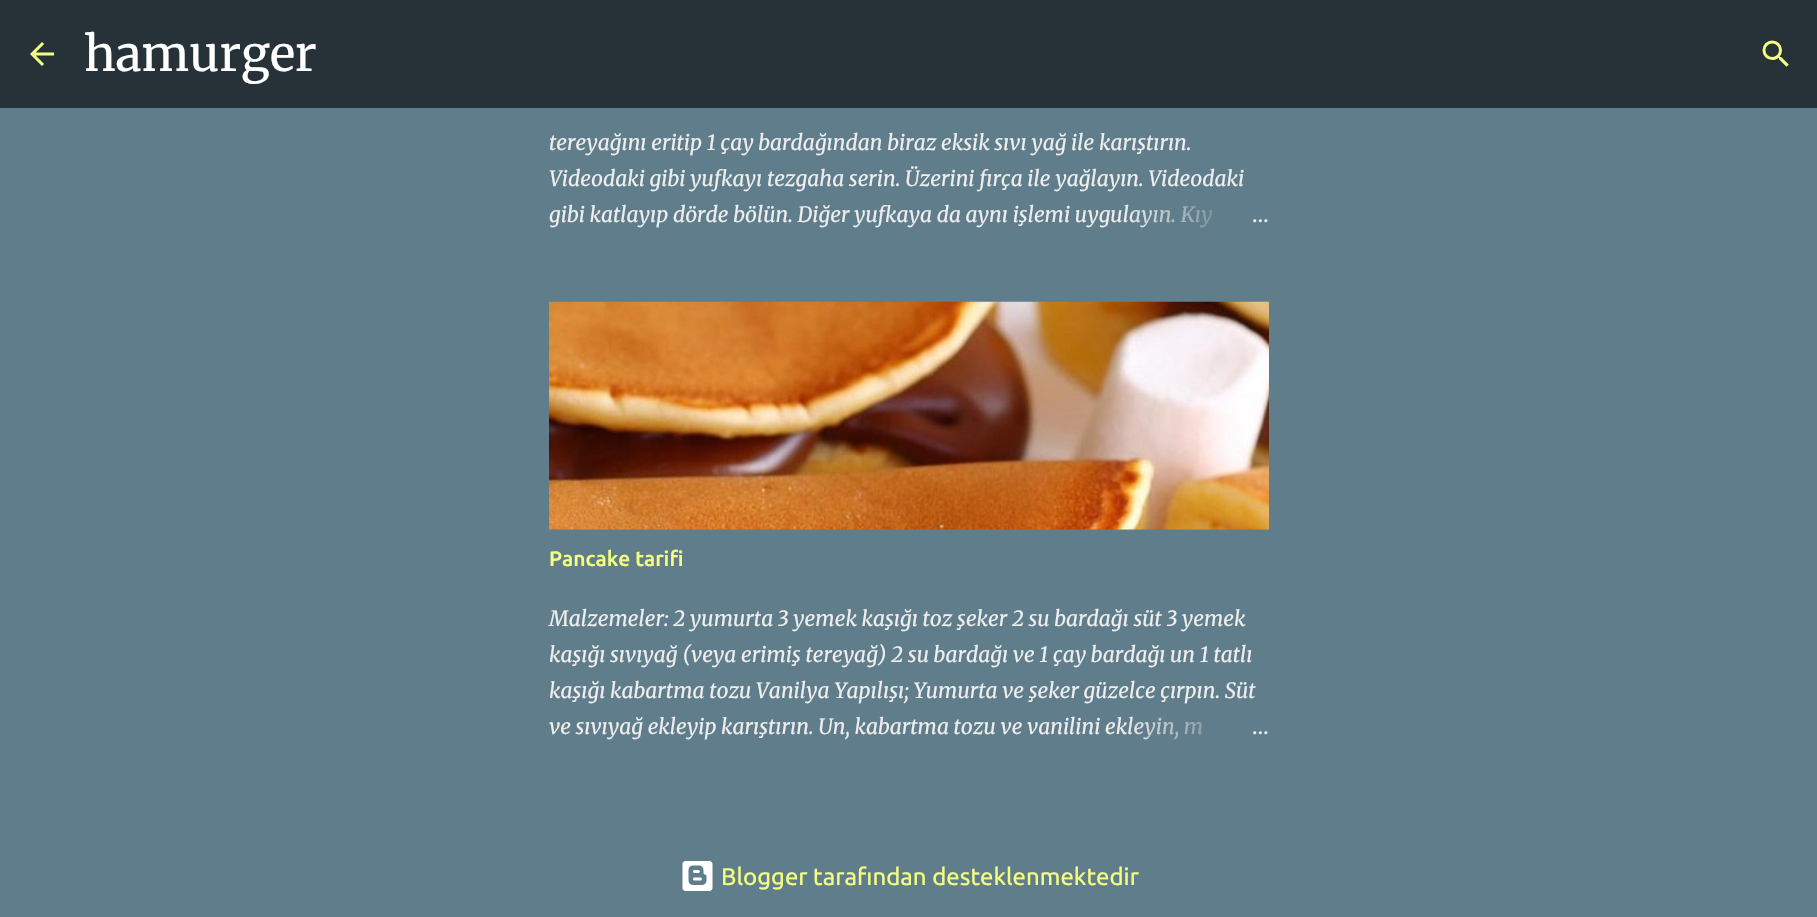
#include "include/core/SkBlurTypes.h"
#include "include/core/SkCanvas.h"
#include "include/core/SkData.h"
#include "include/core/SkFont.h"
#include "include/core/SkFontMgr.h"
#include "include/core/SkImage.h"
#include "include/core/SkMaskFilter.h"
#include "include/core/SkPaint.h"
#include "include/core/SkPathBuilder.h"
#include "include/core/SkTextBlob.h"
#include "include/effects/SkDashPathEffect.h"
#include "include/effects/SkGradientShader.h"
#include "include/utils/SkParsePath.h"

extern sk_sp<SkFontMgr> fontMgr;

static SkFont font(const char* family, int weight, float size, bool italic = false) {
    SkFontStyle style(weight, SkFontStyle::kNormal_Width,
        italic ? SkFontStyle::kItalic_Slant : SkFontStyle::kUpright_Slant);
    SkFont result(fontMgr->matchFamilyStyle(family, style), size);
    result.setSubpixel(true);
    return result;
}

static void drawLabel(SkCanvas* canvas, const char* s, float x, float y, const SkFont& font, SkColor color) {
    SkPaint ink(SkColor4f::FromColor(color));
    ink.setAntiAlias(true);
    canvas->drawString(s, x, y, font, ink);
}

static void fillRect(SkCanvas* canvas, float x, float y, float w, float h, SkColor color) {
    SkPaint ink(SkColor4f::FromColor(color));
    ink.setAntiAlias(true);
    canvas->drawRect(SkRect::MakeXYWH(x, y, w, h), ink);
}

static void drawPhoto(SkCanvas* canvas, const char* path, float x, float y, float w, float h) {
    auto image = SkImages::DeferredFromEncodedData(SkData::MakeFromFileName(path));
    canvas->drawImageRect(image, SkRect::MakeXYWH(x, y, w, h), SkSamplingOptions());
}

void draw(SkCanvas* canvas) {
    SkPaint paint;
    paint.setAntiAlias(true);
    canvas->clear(0xFF607D8B);
    fillRect(canvas, 0, 0, 1817, 108, 0xFF263238);
    drawPhoto(canvas, "assets/img1.png", 30, 42, 24, 24);
    SkFont font1 = font("Merriweather", 400, 48);
    drawLabel(canvas, "hamurger", 84, 71, font1, 0xFFFFFFFF);
    drawPhoto(canvas, "assets/img2.png", 1762, 40, 27, 27);
    SkFont font2 = font("Merriweather", 300, 21, true);
    drawLabel(canvas, "tereyağını eritip 1 çay bardağından biraz eksik sıvı yağ ile karıştırın.", 549, 150, font2, 0xFFEEEEEE);
    drawLabel(canvas, "Videodaki gibi yufkayı tezgaha serin. Üzerini fırça ile yağlayın. Videodaki", 549, 186, font2, 0xFFEEEEEE);
    drawLabel(canvas, "gibi katlayıp dörde bölün. Diğer yufkaya da aynı işlemi uygulayın. Kıy", 549, 222, font2, 0xFFEEEEEE);
    {
        const SkColor colors[] = {0xFF607D8B, 0xFF607D8B, 0x00607D8B};
        const float stops[] = {0, 0.2f, 1};
        const SkPoint ends[] = {{1269, 215}, {1125, 215}};
        paint.setShader(SkGradientShader::MakeLinear(ends, colors, stops, 3, SkTileMode::kClamp));
        paint.setAlpha(255);
    }
    canvas->drawRect(SkRect::MakeXYWH(1127, 205, 85, 23), paint);
    SkFont font3 = font("Merriweather", 400, 21);
    drawLabel(canvas, "…", 1252, 222, font3, 0xFFEEEEEE);
    drawPhoto(canvas, "assets/img3.png", 549, 301, 720, 229);
    SkFont font4 = font("Ubuntu", 500, 21);
    drawLabel(canvas, "Pancake tarifi", 549, 566, font4, 0xFFF4FF81);
    drawLabel(canvas, "Malzemeler: 2 yumurta 3 yemek kaşığı toz şeker 2 su bardağı süt 3 yemek", 549, 626, font2, 0xFFEEEEEE);
    drawLabel(canvas, "kaşığı sıvıyağ (veya erimiş tereyağ) 2 su bardağı ve 1 çay bardağı un 1 tatlı", 549, 662, font2, 0xFFEEEEEE);
    drawLabel(canvas, "kaşığı kabartma tozu Vanilya Yapılışı; Yumurta ve şeker güzelce çırpın. Süt", 549, 698, font2, 0xFFEEEEEE);
    drawLabel(canvas, "ve sıvıyağ ekleyip karıştırın. Un, kabartma tozu ve vanilini ekleyin, m", 549, 734, font2, 0xFFEEEEEE);
    {
        const SkColor colors[] = {0xFF607D8B, 0xFF607D8B, 0x00607D8B};
        const float stops[] = {0, 0.2f, 1};
        const SkPoint ends[] = {{1269, 726}, {1125, 726}};
        paint.setShader(SkGradientShader::MakeLinear(ends, colors, stops, 3, SkTileMode::kClamp));
        paint.setAlpha(255);
    }
    canvas->drawRect(SkRect::MakeXYWH(1128, 717, 74, 23), paint);
    drawLabel(canvas, "…", 1252, 734, font3, 0xFFEEEEEE);
    drawPhoto(canvas, "assets/img4.png", 682, 861, 31, 30);
    SkFont font5 = font("Ubuntu", 400, 24);
    drawLabel(canvas, "Blogger tarafından desteklenmektedir", 721, 885, font5, 0xFFF4FF81);
}
